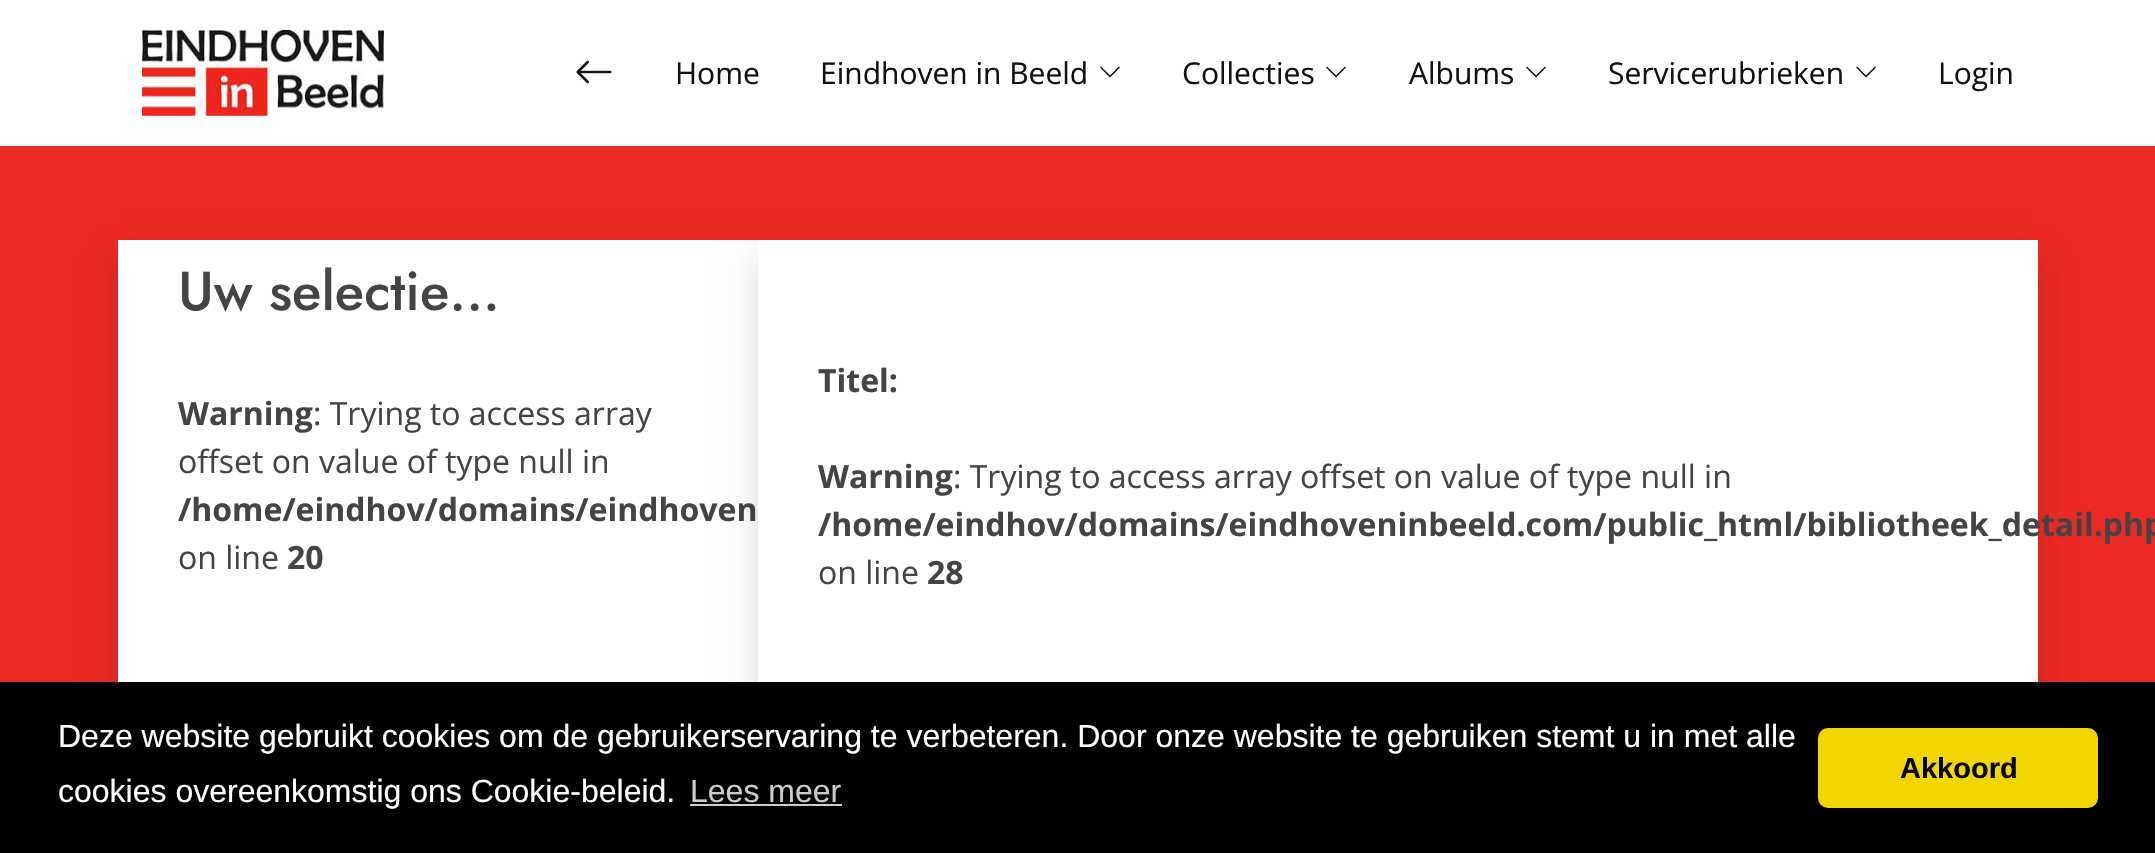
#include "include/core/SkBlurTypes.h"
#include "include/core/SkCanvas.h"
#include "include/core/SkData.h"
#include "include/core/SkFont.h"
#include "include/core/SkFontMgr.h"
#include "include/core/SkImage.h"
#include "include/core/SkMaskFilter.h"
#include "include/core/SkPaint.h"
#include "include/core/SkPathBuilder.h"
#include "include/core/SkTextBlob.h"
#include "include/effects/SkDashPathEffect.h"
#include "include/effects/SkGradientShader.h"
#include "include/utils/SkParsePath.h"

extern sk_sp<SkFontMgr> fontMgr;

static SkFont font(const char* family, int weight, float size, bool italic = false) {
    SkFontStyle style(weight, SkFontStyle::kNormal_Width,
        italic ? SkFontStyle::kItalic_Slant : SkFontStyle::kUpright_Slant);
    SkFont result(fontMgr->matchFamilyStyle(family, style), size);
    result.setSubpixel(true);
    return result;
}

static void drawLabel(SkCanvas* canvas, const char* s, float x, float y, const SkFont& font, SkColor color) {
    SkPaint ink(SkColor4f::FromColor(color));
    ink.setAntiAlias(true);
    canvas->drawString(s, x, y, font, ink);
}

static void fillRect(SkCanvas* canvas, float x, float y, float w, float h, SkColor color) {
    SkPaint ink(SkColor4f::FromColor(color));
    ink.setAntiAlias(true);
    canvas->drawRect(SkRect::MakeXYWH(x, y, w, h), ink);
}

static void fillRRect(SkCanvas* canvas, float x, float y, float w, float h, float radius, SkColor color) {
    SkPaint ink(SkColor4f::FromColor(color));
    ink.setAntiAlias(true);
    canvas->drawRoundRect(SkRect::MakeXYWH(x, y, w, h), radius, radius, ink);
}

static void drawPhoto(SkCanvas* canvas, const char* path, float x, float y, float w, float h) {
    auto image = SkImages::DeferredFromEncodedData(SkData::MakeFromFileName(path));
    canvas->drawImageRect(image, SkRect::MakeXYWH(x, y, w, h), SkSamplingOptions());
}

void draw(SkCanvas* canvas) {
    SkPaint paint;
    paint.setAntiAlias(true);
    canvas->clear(0xFFED2A24);
    fillRect(canvas, 0, 0, 2155, 146, 0xFFFFFFFF);
    drawPhoto(canvas, "assets/img1.png", 142, 30, 242, 86);
    drawPhoto(canvas, "assets/img2.png", 576, 60, 36, 24);
    SkFont font1 = font("Open Sans", 400, 30);
    drawLabel(canvas, "Home", 675, 84, font1, 0xFF111111);
    drawLabel(canvas, "Eindhoven in Beeld", 820, 84, font1, 0xFF111111);
    drawPhoto(canvas, "assets/img3.png", 1100, 66, 20, 12);
    drawLabel(canvas, "Collecties", 1182, 84, font1, 0xFF111111);
    drawPhoto(canvas, "assets/img3.png", 1326, 66, 20, 12);
    drawLabel(canvas, "Albums", 1409, 84, font1, 0xFF111111);
    drawPhoto(canvas, "assets/img3.png", 1526, 66, 20, 12);
    drawLabel(canvas, "Servicerubrieken", 1608, 84, font1, 0xFF111111);
    drawPhoto(canvas, "assets/img3.png", 1856, 66, 20, 12);
    drawLabel(canvas, "Login", 1938, 84, font1, 0xFF111111);
    paint.setColor(0x26000000);
    paint.setMaskFilter(SkMaskFilter::MakeBlur(kNormal_SkBlurStyle, 16));
    canvas->drawRect(SkRect::MakeXYWH(118, 256, 640, 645), paint);
    paint.setMaskFilter(nullptr);
    fillRect(canvas, 118, 240, 640, 442, 0xFFFFFFFF);
    SkFont font2 = font("Jost", 500, 54.5f);
    drawLabel(canvas, "Uw selectie...", 178, 310, font2, 0xFF444444);
    SkFont font3 = font("Open Sans", 700, 32);
    drawLabel(canvas, "Warning", 178, 425, font3, 0xFF444444);
    SkFont font4 = font("Open Sans", 400, 32);
    drawLabel(canvas, ": Trying to access array", 313, 425, font4, 0xFF444444);
    drawLabel(canvas, "offset on value of type null in", 178, 473, font4, 0xFF444444);
    drawLabel(canvas, "/home/eindhov/domains/eindhoven", 178, 521, font3, 0xFF444444);
    drawLabel(canvas, "on line", 178, 569, font4, 0xFF444444);
    drawLabel(canvas, "20", 287, 569, font3, 0xFF444444);
    paint.setMaskFilter(SkMaskFilter::MakeBlur(kNormal_SkBlurStyle, 16));
    canvas->drawRect(SkRect::MakeXYWH(758, 256, 1280, 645), paint);
    paint.setMaskFilter(nullptr);
    fillRect(canvas, 758, 240, 1280, 442, 0xFFFFFFFF);
    drawLabel(canvas, "Titel:", 818, 392, font3, 0xFF444444);
    drawLabel(canvas, "Warning", 818, 488, font3, 0xFF444444);
    drawLabel(canvas, ": Trying to access array offset on value of type null in", 953, 488, font4, 0xFF444444);
    drawLabel(canvas, "/home/eindhov/domains/eindhoveninbeeld.com/public_html/bibliotheek_detail.php", 818, 536, font3, 0xFF444444);
    drawLabel(canvas, "on line", 818, 584, font4, 0xFF444444);
    drawLabel(canvas, "28", 927, 584, font3, 0xFF444444);
    fillRect(canvas, 0, 682, 2155, 171, 0xFF000000);
    SkFont font5 = font("Liberation Sans", 400, 32);
    drawLabel(canvas, "Deze website gebruikt cookies om de gebruikerservaring te verbeteren. Door onze website te gebruiken stemt u in met alle", 58, 747, font5, 0xFFFFFFFF);
    drawLabel(canvas, "cookies overeenkomstig ons Cookie-beleid.", 58, 802, font5, 0xFFFFFFFF);
    drawLabel(canvas, "Lees meer", 690, 802, font5, 0xFFCCCCCC);
    fillRect(canvas, 690, 804, 152, 2, 0xFFCCCCCC);
    fillRRect(canvas, 1818, 728, 280, 80, 10, 0xFFF1D600);
    SkFont font6 = font("Liberation Sans", 700, 29);
    drawLabel(canvas, "Akkoord", 1900, 778, font6, 0xFF000000);
}
